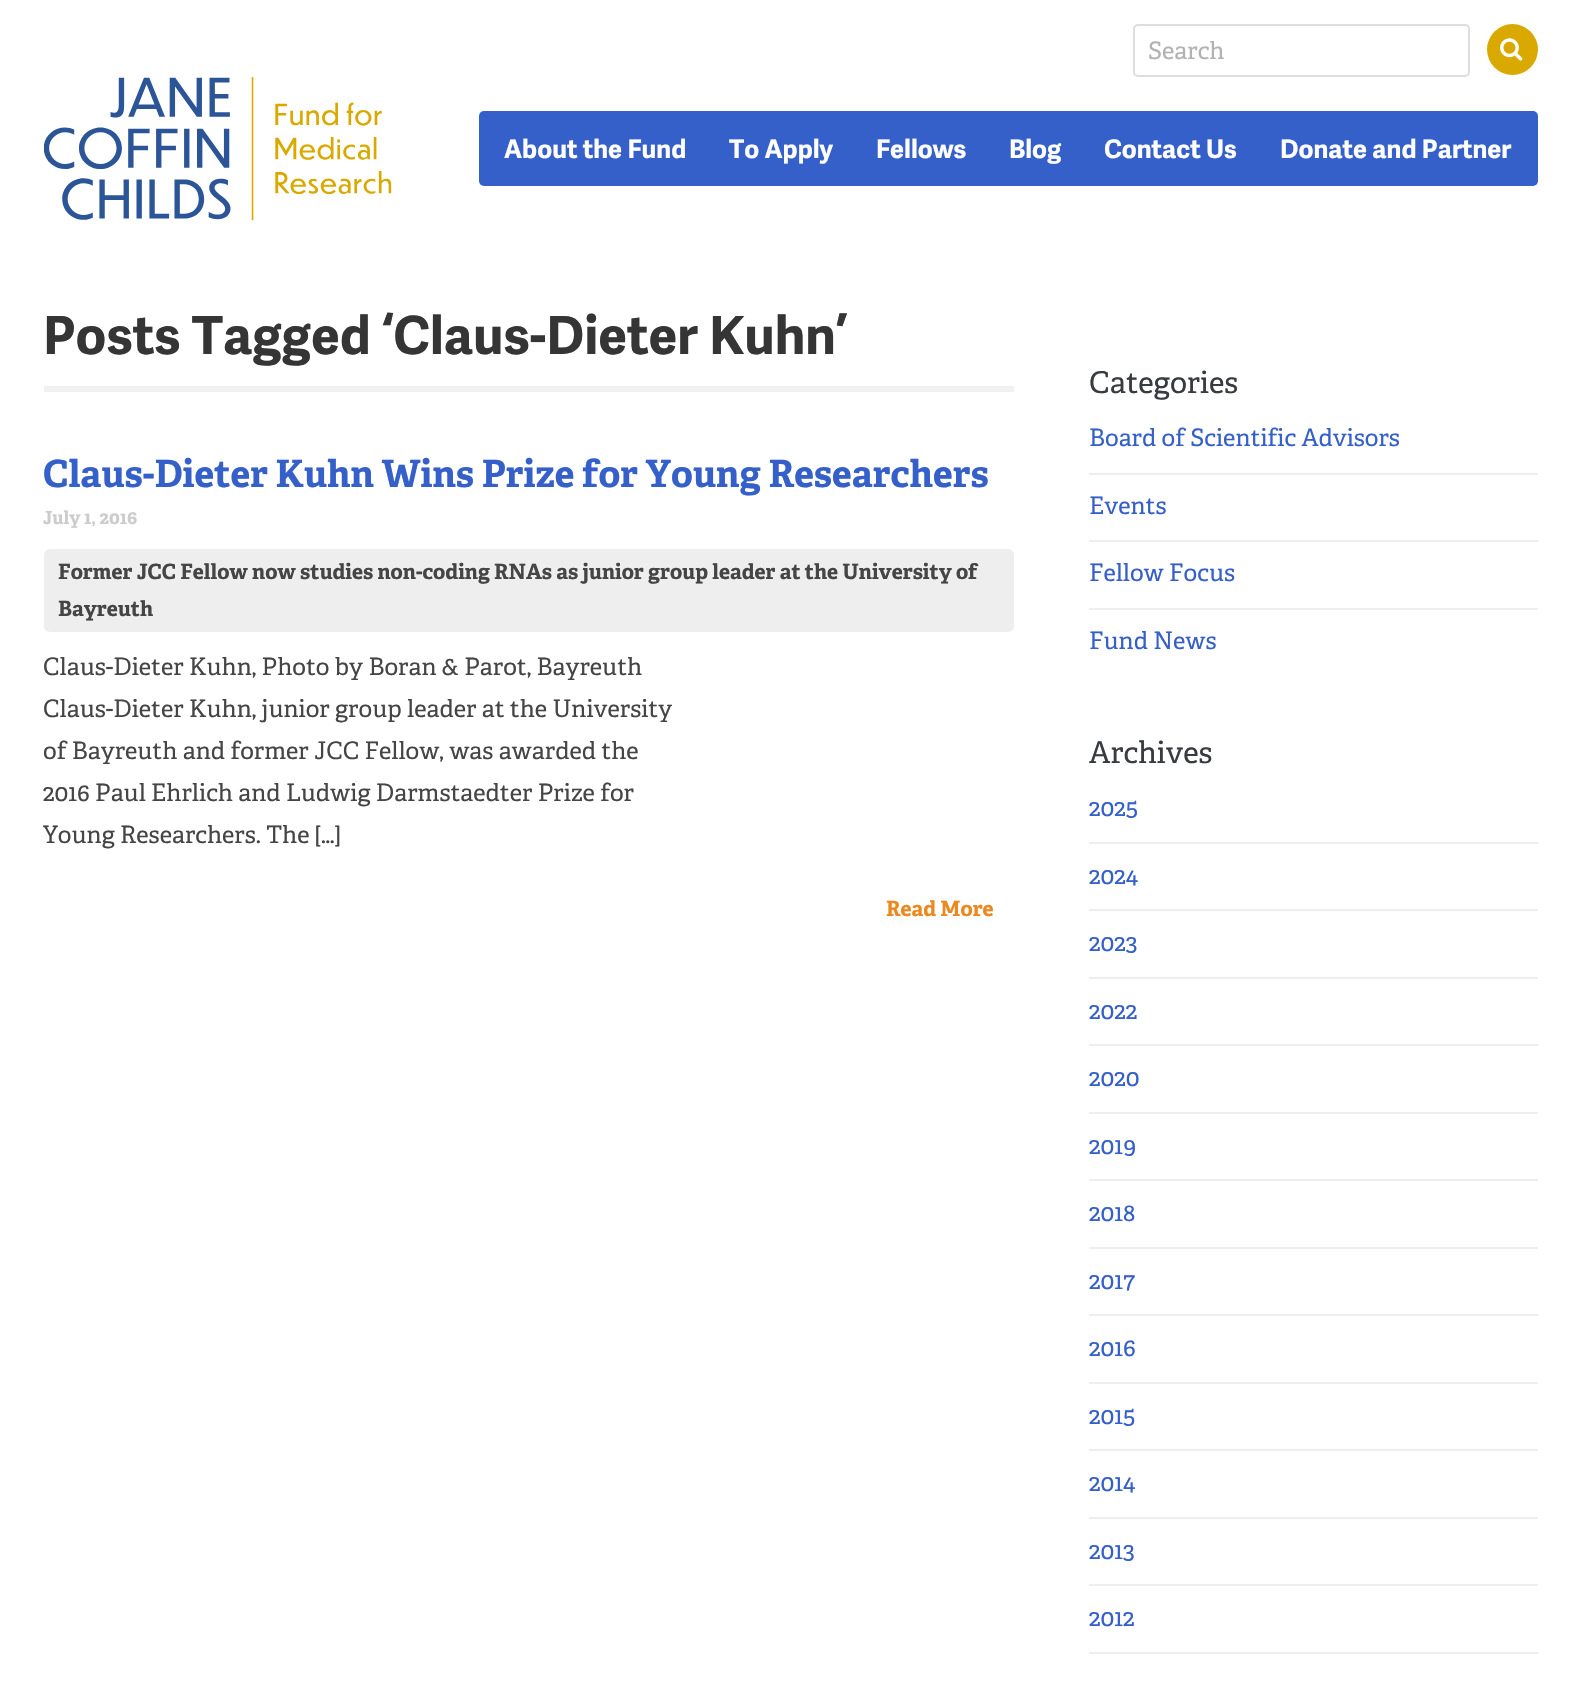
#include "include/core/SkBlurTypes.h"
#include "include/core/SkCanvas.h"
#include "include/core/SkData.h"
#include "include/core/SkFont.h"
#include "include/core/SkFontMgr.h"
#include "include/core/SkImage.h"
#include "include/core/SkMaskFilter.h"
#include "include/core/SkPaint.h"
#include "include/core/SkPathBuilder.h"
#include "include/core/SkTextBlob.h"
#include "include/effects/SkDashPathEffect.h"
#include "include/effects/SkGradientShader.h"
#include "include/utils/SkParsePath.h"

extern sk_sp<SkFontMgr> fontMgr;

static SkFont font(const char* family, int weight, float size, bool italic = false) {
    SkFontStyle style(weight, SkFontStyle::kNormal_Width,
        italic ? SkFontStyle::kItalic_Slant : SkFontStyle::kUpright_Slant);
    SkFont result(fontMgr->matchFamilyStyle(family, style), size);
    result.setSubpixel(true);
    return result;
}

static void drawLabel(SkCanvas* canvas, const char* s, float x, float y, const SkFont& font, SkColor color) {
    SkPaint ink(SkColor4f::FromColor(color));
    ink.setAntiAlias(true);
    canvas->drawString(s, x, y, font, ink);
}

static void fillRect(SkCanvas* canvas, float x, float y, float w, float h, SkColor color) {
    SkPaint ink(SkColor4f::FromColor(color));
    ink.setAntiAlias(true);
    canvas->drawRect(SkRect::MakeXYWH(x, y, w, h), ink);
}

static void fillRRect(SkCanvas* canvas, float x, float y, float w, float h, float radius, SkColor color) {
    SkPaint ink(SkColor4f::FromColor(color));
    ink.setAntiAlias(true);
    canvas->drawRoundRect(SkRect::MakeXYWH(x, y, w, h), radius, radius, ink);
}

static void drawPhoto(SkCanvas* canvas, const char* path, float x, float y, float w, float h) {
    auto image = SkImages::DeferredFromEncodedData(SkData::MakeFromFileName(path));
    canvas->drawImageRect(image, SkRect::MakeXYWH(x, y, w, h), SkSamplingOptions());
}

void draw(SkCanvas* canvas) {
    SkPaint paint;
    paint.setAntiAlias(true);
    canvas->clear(0xFFFFFFFF);
    paint.setStroke(true);
    paint.setStrokeWidth(2);
    paint.setColor(0xFFDEDEDE);
    canvas->drawRoundRect(SkRect::MakeXYWH(1134, 25, 335, 51), 4, 4, paint);
    SkFont font1 = font("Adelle", 400, 24);
    drawLabel(canvas, "Search", 1148, 59, font1, 0xFFB2B2B2);
    paint.setStroke(false);
    paint.setColor(0xFFDAA900);
    canvas->drawCircle(1512.5f, 49.5f, 25.5f, paint);
    drawPhoto(canvas, "assets/img1.png", 1500, 38, 23, 23);
    drawPhoto(canvas, "assets/img2.png", 44, 77, 348, 144);
    fillRRect(canvas, 479, 111, 1059, 75, 5, 0xFF3660C9);
    SkFont font2 = font("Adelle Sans", 700, 25.5f);
    drawLabel(canvas, "About the Fund", 504, 158, font2, 0xFFFFFFFF);
    drawLabel(canvas, "To Apply", 729, 158, font2, 0xFFFFFFFF);
    drawLabel(canvas, "Fellows", 876, 158, font2, 0xFFFFFFFF);
    drawLabel(canvas, "Blog", 1009, 158, font2, 0xFFFFFFFF);
    drawLabel(canvas, "Contact Us", 1104, 158, font2, 0xFFFFFFFF);
    drawLabel(canvas, "Donate and Partner", 1280, 158, font2, 0xFFFFFFFF);
    fillRect(canvas, 44, 386, 970, 6, 0xFFF1F1F1);
    SkFont font3 = font("Adelle Sans", 700, 52.5f);
    drawLabel(canvas, "Posts Tagged ‘Claus-Dieter Kuhn’", 43, 354, font3, 0xFF353535);
    SkFont font4 = font("Adelle", 700, 37.5f);
    drawLabel(canvas, "Claus-Dieter Kuhn Wins Prize for Young Researchers", 43, 487, font4, 0xFF3660C9);
    SkFont font5 = font("Adelle", 700, 18);
    drawLabel(canvas, "July 1, 2016", 43, 524, font5, 0xFFCCCCCC);
    fillRRect(canvas, 44, 549, 970, 83, 6, 0xFFEEEEEE);
    SkFont font6 = font("Adelle", 700, 21);
    drawLabel(canvas, "Former JCC Fellow now studies non-coding RNAs as junior group leader at the University of", 58, 579, font6, 0xFF454545);
    drawLabel(canvas, "Bayreuth", 58, 616, font6, 0xFF454545);
    drawLabel(canvas, "Claus-Dieter Kuhn, Photo by Boran & Parot, Bayreuth", 43, 675, font1, 0xFF454545);
    drawLabel(canvas, "Claus-Dieter Kuhn, junior group leader at the University", 43, 717, font1, 0xFF454545);
    drawLabel(canvas, "of Bayreuth and former JCC Fellow, was awarded the", 43, 759, font1, 0xFF454545);
    drawLabel(canvas, "2016 Paul Ehrlich and Ludwig Darmstaedter Prize for", 43, 801, font1, 0xFF454545);
    drawLabel(canvas, "Young Researchers. The […]", 43, 843, font1, 0xFF454545);
    drawLabel(canvas, "Read More", 886, 916, font6, 0xFFEC881E);
    SkFont font7 = font("Adelle", 400, 30);
    drawLabel(canvas, "Categories", 1089, 393, font7, 0xFF383B3F);
    drawLabel(canvas, "Board of Scientific Advisors", 1089, 446, font1, 0xFF3660C9);
    fillRect(canvas, 1089, 473, 449, 2, 0xFFEEEEEE);
    drawLabel(canvas, "Events", 1089, 514, font1, 0xFF3660C9);
    fillRect(canvas, 1089, 540, 449, 2, 0xFFEEEEEE);
    drawLabel(canvas, "Fellow Focus", 1089, 581, font1, 0xFF3660C9);
    fillRect(canvas, 1089, 608, 449, 2, 0xFFEEEEEE);
    drawLabel(canvas, "Fund News", 1089, 649, font1, 0xFF3660C9);
    drawLabel(canvas, "Archives", 1089, 763, font7, 0xFF383B3F);
    drawLabel(canvas, "2025", 1089, 816, font1, 0xFF3660C9);
    fillRect(canvas, 1089, 842, 449, 2, 0xFFEEEEEE);
    drawLabel(canvas, "2024", 1089, 884, font1, 0xFF3660C9);
    fillRect(canvas, 1089, 909, 449, 2, 0xFFEEEEEE);
    drawLabel(canvas, "2023", 1089, 951, font1, 0xFF3660C9);
    fillRect(canvas, 1089, 977, 449, 2, 0xFFEEEEEE);
    drawLabel(canvas, "2022", 1089, 1019, font1, 0xFF3660C9);
    fillRect(canvas, 1089, 1044, 449, 2, 0xFFEEEEEE);
    drawLabel(canvas, "2020", 1089, 1086, font1, 0xFF3660C9);
    fillRect(canvas, 1089, 1112, 449, 2, 0xFFEEEEEE);
    drawLabel(canvas, "2019", 1089, 1154, font1, 0xFF3660C9);
    fillRect(canvas, 1089, 1179, 449, 2, 0xFFEEEEEE);
    drawLabel(canvas, "2018", 1089, 1221, font1, 0xFF3660C9);
    fillRect(canvas, 1089, 1247, 449, 2, 0xFFEEEEEE);
    drawLabel(canvas, "2017", 1089, 1289, font1, 0xFF3660C9);
    fillRect(canvas, 1089, 1314, 449, 2, 0xFFEEEEEE);
    drawLabel(canvas, "2016", 1089, 1356, font1, 0xFF3660C9);
    fillRect(canvas, 1089, 1382, 449, 2, 0xFFEEEEEE);
    drawLabel(canvas, "2015", 1089, 1424, font1, 0xFF3660C9);
    fillRect(canvas, 1089, 1449, 449, 2, 0xFFEEEEEE);
    drawLabel(canvas, "2014", 1089, 1491, font1, 0xFF3660C9);
    fillRect(canvas, 1089, 1517, 449, 2, 0xFFEEEEEE);
    drawLabel(canvas, "2013", 1089, 1559, font1, 0xFF3660C9);
    fillRect(canvas, 1089, 1584, 449, 2, 0xFFEEEEEE);
    drawLabel(canvas, "2012", 1089, 1626, font1, 0xFF3660C9);
    fillRect(canvas, 1089, 1652, 449, 2, 0xFFEEEEEE);
}
